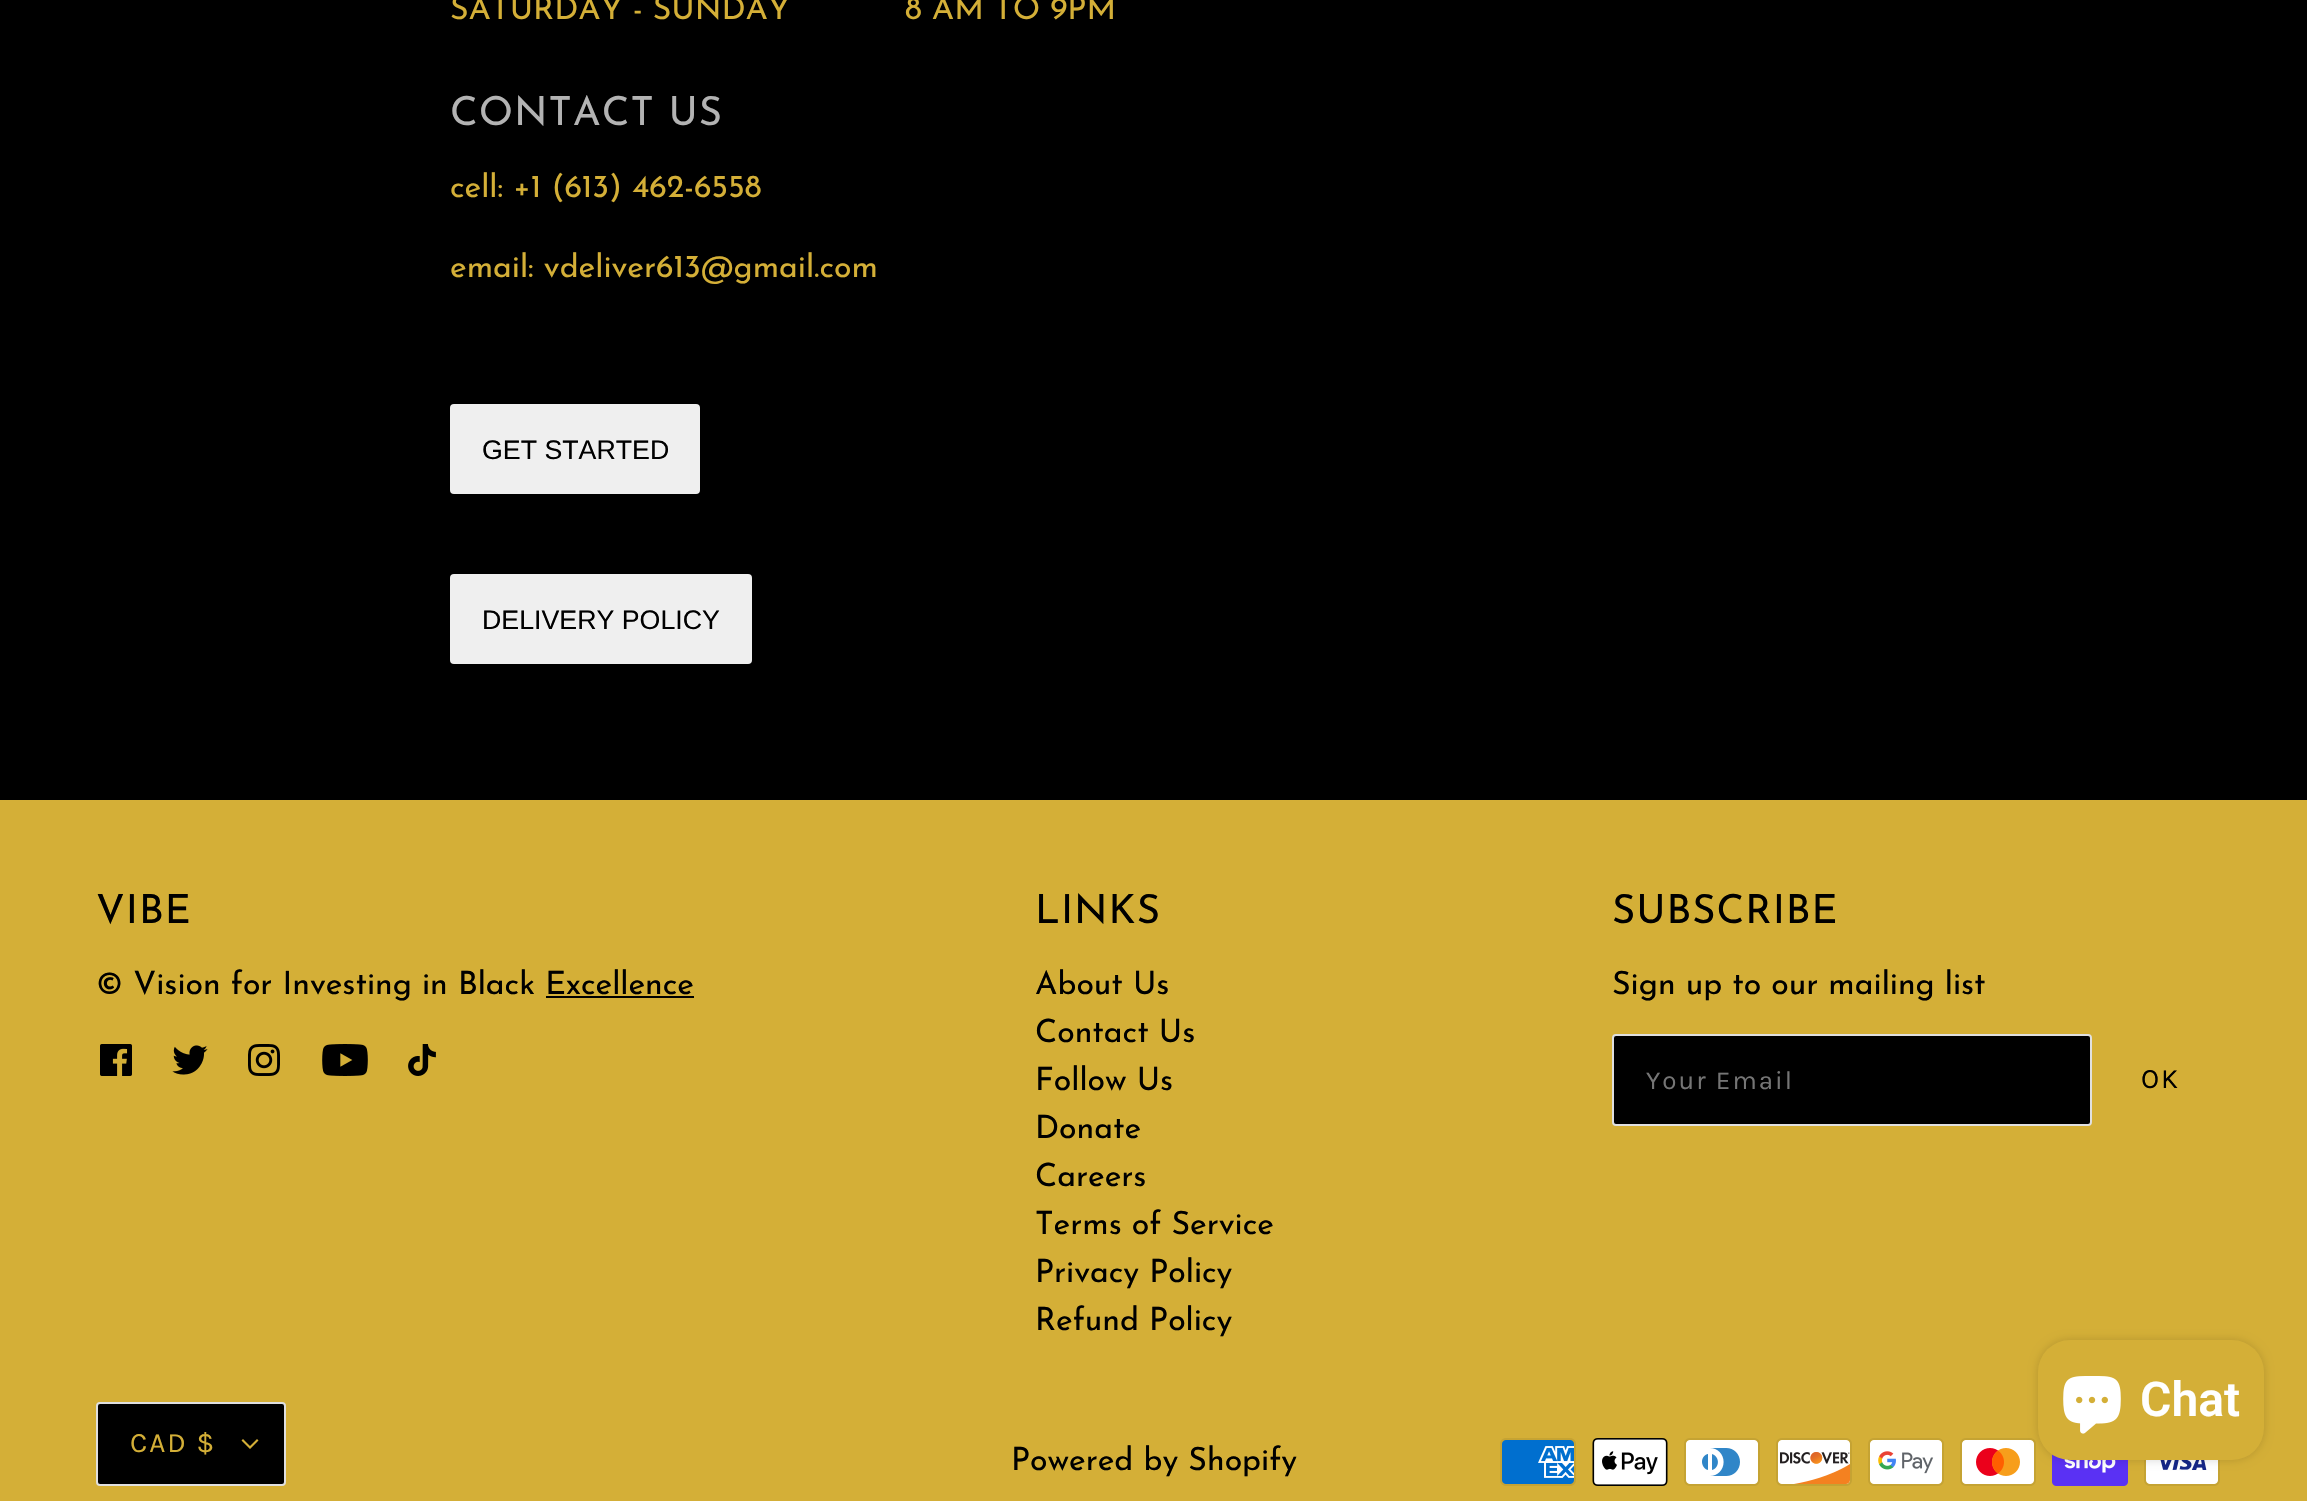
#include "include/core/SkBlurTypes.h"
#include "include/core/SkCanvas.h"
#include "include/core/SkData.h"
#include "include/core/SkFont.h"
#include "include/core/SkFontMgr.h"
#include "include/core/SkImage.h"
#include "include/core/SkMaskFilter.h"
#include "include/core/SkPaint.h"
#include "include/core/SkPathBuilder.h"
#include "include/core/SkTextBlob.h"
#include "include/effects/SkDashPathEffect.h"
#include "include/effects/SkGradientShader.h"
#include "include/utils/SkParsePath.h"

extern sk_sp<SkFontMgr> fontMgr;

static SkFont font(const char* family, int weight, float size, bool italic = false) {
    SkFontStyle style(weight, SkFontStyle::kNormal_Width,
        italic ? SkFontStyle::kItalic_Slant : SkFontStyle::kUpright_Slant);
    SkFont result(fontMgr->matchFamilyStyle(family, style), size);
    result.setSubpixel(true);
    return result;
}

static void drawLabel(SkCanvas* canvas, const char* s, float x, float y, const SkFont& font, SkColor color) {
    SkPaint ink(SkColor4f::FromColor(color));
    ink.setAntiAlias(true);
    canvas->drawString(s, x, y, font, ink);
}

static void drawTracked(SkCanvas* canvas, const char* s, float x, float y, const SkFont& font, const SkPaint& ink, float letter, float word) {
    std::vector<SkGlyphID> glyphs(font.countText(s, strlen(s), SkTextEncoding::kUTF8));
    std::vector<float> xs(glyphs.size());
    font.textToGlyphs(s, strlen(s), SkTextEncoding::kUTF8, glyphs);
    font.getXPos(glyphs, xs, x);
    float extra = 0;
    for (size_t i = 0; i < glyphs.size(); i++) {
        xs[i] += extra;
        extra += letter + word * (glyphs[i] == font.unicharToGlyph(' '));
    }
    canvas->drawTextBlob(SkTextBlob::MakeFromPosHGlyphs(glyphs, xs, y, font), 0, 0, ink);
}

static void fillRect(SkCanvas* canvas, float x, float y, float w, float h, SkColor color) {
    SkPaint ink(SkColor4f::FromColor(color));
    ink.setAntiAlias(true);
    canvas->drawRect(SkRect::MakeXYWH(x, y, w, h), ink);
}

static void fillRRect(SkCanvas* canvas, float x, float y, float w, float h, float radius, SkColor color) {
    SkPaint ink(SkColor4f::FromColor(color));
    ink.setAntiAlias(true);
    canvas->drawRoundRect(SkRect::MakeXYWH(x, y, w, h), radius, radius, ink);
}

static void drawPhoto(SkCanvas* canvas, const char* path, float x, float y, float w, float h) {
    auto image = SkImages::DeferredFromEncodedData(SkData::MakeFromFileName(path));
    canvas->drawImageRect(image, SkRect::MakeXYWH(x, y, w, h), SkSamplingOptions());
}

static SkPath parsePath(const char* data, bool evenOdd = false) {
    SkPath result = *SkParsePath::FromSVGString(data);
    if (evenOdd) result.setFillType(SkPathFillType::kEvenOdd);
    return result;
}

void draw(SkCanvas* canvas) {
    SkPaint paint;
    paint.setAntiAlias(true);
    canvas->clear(0xFF000000);
    SkFont font1 = font("Josefin Sans", 400, 32);
    drawLabel(canvas, "SATURDAY - SUNDAY", 450, 19, font1, 0xFFD4AF37);
    drawLabel(canvas, "8 AM TO 9PM", 905, 19, font1, 0xFFD4AF37);
    SkFont font2 = font("Josefin Sans", 400, 40);
    paint.setColor(0xFFB3B3B3);
    drawTracked(canvas, "CONTACT US", 450, 125, font2, paint, 1, 0);
    drawLabel(canvas, "cell: +1 (613) 462-6558", 450, 197, font1, 0xFFD4AF37);
    drawLabel(canvas, "email: vdeliver613@gmail.com", 450, 277, font1, 0xFFD4AF37);
    fillRRect(canvas, 450, 404, 250, 90, 4, 0xFFEFEFEF);
    SkFont font3 = font("Liberation Sans", 400, 26.75f);
    drawLabel(canvas, "GET STARTED", 482, 459, font3, 0xFF000000);
    fillRRect(canvas, 450, 574, 302, 90, 4, 0xFFEFEFEF);
    drawLabel(canvas, "DELIVERY POLICY", 482, 629, font3, 0xFF000000);
    fillRect(canvas, 0, 800, 2307, 701, 0xFFD4AF37);
    paint.setColor(0xFF000000);
    drawTracked(canvas, "VIBE", 96, 923, font2, paint, 1, 0);
    drawLabel(canvas, "© Vision for Investing in Black Excellence", 96, 994, font1, 0xFF000000);
    fillRect(canvas, 546, 996, 148, 2, 0xFF000000);
    drawPhoto(canvas, "assets/img1.png", 100, 1044, 32, 32);
    drawPhoto(canvas, "assets/img2.png", 172, 1045, 36, 30);
    drawPhoto(canvas, "assets/img3.png", 248, 1044, 32, 32);
    drawPhoto(canvas, "assets/img4.png", 322, 1044, 46, 32);
    drawPhoto(canvas, "assets/img5.png", 408, 1044, 28, 32);
    drawTracked(canvas, "LINKS", 1035, 923, font2, paint, 1, 0);
    drawLabel(canvas, "About Us", 1035, 994, font1, 0xFF000000);
    drawLabel(canvas, "Contact Us", 1035, 1042, font1, 0xFF000000);
    drawLabel(canvas, "Follow Us", 1035, 1090, font1, 0xFF000000);
    drawLabel(canvas, "Donate", 1035, 1138, font1, 0xFF000000);
    drawLabel(canvas, "Careers", 1035, 1186, font1, 0xFF000000);
    drawLabel(canvas, "Terms of Service", 1035, 1234, font1, 0xFF000000);
    drawLabel(canvas, "Privacy Policy", 1035, 1282, font1, 0xFF000000);
    drawLabel(canvas, "Refund Policy", 1035, 1330, font1, 0xFF000000);
    drawTracked(canvas, "SUBSCRIBE", 1612, 923, font2, paint, 1, 0);
    drawLabel(canvas, "Sign up to our mailing list", 1612, 994, font1, 0xFF000000);
    canvas->drawRoundRect(SkRect::MakeXYWH(1613, 1035, 478, 90), 3, 3, paint);
    paint.setStroke(true);
    paint.setStrokeWidth(2);
    paint.setColor(0xFFE0E0E0);
    canvas->drawRoundRect(SkRect::MakeXYWH(1613, 1035, 478, 90), 3, 3, paint);
    SkFont font4 = font("Karla", 400, 26);
    paint.setStroke(false);
    paint.setColor(0xFF757575);
    drawTracked(canvas, "Your Email", 1646, 1089, font4, paint, 2, 0);
    SkFont font5 = font("Karla", 400, 28);
    paint.setColor(0xFF000000);
    drawTracked(canvas, "OK", 2141, 1088, font5, paint, 2, 0);
    canvas->drawRoundRect(SkRect::MakeXYWH(97, 1403, 188, 82), 3, 3, paint);
    paint.setStroke(true);
    paint.setColor(0xFFE0E0E0);
    canvas->drawRoundRect(SkRect::MakeXYWH(97, 1403, 188, 82), 3, 3, paint);
    paint.setStroke(false);
    paint.setColor(0xFFD4AF37);
    drawTracked(canvas, "CAD $", 130, 1452, font5, paint, 2, 0);
    canvas->drawPath(parsePath("M250 1446L257 1439L258.5 1440.5L250 1449L241.5 1440.5L243 1439Z"), paint);
    drawLabel(canvas, "Powered by Shopify", 1011, 1470, font1, 0xFF000000);
    drawPhoto(canvas, "assets/img6.png", 1500, 1438, 76, 48);
    drawPhoto(canvas, "assets/img7.png", 1592, 1438, 76, 48);
    drawPhoto(canvas, "assets/img8.png", 1684, 1438, 76, 48);
    drawPhoto(canvas, "assets/img9.png", 1776, 1438, 76, 48);
    drawPhoto(canvas, "assets/img10.png", 1868, 1438, 76, 48);
    drawPhoto(canvas, "assets/img11.png", 1960, 1438, 76, 48);
    drawPhoto(canvas, "assets/img12.png", 2052, 1454, 76, 32);
    drawPhoto(canvas, "assets/img13.png", 2144, 1460, 76, 26);
    paint.setColor(0x26000000);
    paint.setMaskFilter(SkMaskFilter::MakeBlur(kNormal_SkBlurStyle, 5));
    canvas->drawRoundRect(SkRect::MakeXYWH(2038, 1340, 226, 120), 32, 32, paint);
    paint.setMaskFilter(nullptr);
    fillRRect(canvas, 2038, 1340, 226, 120, 32, 0xFFD4AF37);
    drawPhoto(canvas, "assets/img14.png", 2063, 1376, 58, 58);
    SkFont font6 = font("Roboto", 600, 48);
    drawLabel(canvas, "Chat", 2140, 1416, font6, 0xFFFFFFFF);
}
